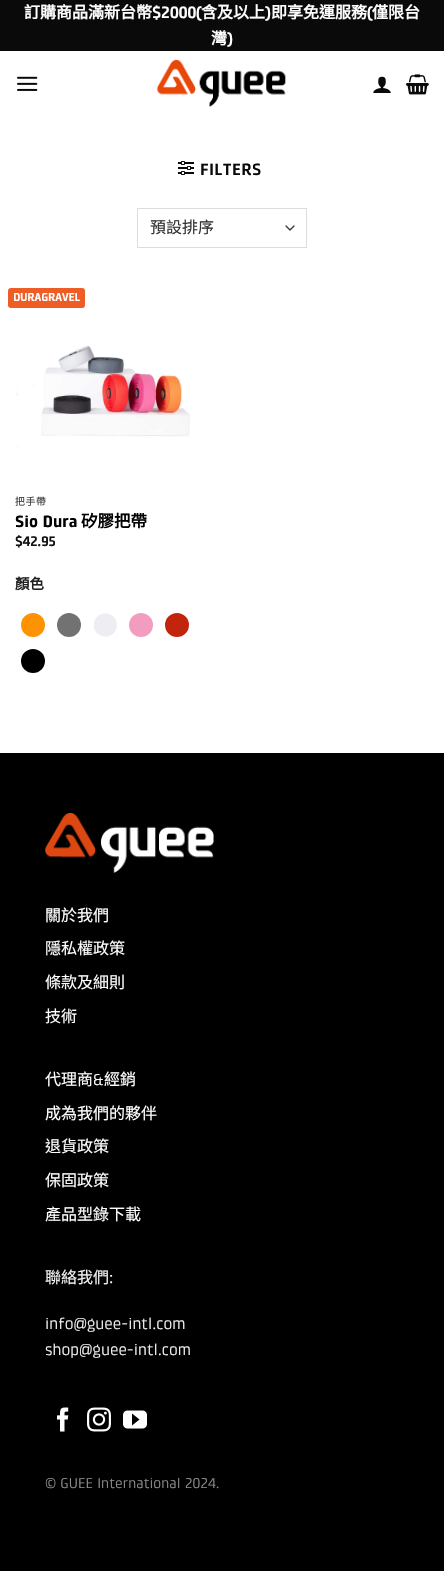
#include "include/core/SkBlurTypes.h"
#include "include/core/SkCanvas.h"
#include "include/core/SkData.h"
#include "include/core/SkFont.h"
#include "include/core/SkFontMgr.h"
#include "include/core/SkImage.h"
#include "include/core/SkMaskFilter.h"
#include "include/core/SkPaint.h"
#include "include/core/SkPathBuilder.h"
#include "include/core/SkTextBlob.h"
#include "include/effects/SkDashPathEffect.h"
#include "include/effects/SkGradientShader.h"
#include "include/utils/SkParsePath.h"

extern sk_sp<SkFontMgr> fontMgr;

static SkFont font(const char* family, int weight, float size, bool italic = false) {
    SkFontStyle style(weight, SkFontStyle::kNormal_Width,
        italic ? SkFontStyle::kItalic_Slant : SkFontStyle::kUpright_Slant);
    SkFont result(fontMgr->matchFamilyStyle(family, style), size);
    result.setSubpixel(true);
    return result;
}

static void drawLabel(SkCanvas* canvas, const char* s, float x, float y, const SkFont& font, SkColor color) {
    SkPaint ink(SkColor4f::FromColor(color));
    ink.setAntiAlias(true);
    canvas->drawString(s, x, y, font, ink);
}

static void drawTracked(SkCanvas* canvas, const char* s, float x, float y, const SkFont& font, const SkPaint& ink, float letter, float word) {
    std::vector<SkGlyphID> glyphs(font.countText(s, strlen(s), SkTextEncoding::kUTF8));
    std::vector<float> xs(glyphs.size());
    font.textToGlyphs(s, strlen(s), SkTextEncoding::kUTF8, glyphs);
    font.getXPos(glyphs, xs, x);
    float extra = 0;
    for (size_t i = 0; i < glyphs.size(); i++) {
        xs[i] += extra;
        extra += letter + word * (glyphs[i] == font.unicharToGlyph(' '));
    }
    canvas->drawTextBlob(SkTextBlob::MakeFromPosHGlyphs(glyphs, xs, y, font), 0, 0, ink);
}

static void fillRect(SkCanvas* canvas, float x, float y, float w, float h, SkColor color) {
    SkPaint ink(SkColor4f::FromColor(color));
    ink.setAntiAlias(true);
    canvas->drawRect(SkRect::MakeXYWH(x, y, w, h), ink);
}

static void fillRRect(SkCanvas* canvas, float x, float y, float w, float h, float radius, SkColor color) {
    SkPaint ink(SkColor4f::FromColor(color));
    ink.setAntiAlias(true);
    canvas->drawRoundRect(SkRect::MakeXYWH(x, y, w, h), radius, radius, ink);
}

static void drawPhoto(SkCanvas* canvas, const char* path, float x, float y, float w, float h) {
    auto image = SkImages::DeferredFromEncodedData(SkData::MakeFromFileName(path));
    canvas->drawImageRect(image, SkRect::MakeXYWH(x, y, w, h), SkSamplingOptions());
}

static SkPath parsePath(const char* data, bool evenOdd = false) {
    SkPath result = *SkParsePath::FromSVGString(data);
    if (evenOdd) result.setFillType(SkPathFillType::kEvenOdd);
    return result;
}

void draw(SkCanvas* canvas) {
    SkPaint paint;
    paint.setAntiAlias(true);
    canvas->clear(0xFFFFFFFF);
    fillRect(canvas, 0, 0, 444, 51, 0xFF0A0A0A);
    SkFont font1 = font("Noto Sans CJK TC", 700, 16);
    drawLabel(canvas, "訂購商品滿新台幣", 24, 18, font1, 0xFFFFFFFF);
    SkFont font2 = font("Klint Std", 700, 16);
    drawLabel(canvas, "$2000(", 152, 18, font2, 0xFFFFFFFF);
    drawLabel(canvas, "含及以上", 201, 18, font1, 0xFFFFFFFF);
    drawLabel(canvas, ")", 265, 18, font2, 0xFFFFFFFF);
    drawLabel(canvas, "即享免運服務", 271, 18, font1, 0xFFFFFFFF);
    drawLabel(canvas, "(", 367, 18, font2, 0xFFFFFFFF);
    drawLabel(canvas, "僅限台", 372, 18, font1, 0xFFFFFFFF);
    drawLabel(canvas, "灣", 211, 44, font1, 0xFFFFFFFF);
    drawLabel(canvas, ")", 227, 44, font2, 0xFFFFFFFF);
    drawPhoto(canvas, "assets/img1.png", 17, 76, 21, 15);
    drawPhoto(canvas, "assets/img2.png", 156, 59, 130, 48);
    drawPhoto(canvas, "assets/img3.png", 373, 76, 18, 17);
    drawPhoto(canvas, "assets/img4.png", 406, 74, 23, 21);
    drawPhoto(canvas, "assets/img5.png", 178, 161, 16, 14);
    paint.setColor(0xFF0A0A0A);
    drawTracked(canvas, "FILTERS", 200, 175, font2, paint, 0.75f, 0);
    paint.setStroke(true);
    paint.setStrokeWidth(1.3f);
    paint.setStrokeCap(SkPaint::kRound_Cap);
    paint.setStrokeJoin(SkPaint::kRound_Join);
    paint.setColor(0xFF333333);
    canvas->drawPath(parsePath("M286 226L290 230L294 226"), paint);
    paint.setStrokeWidth(1);
    paint.setStrokeCap(SkPaint::kButt_Cap);
    paint.setStrokeJoin(SkPaint::kMiter_Join);
    paint.setColor(0xFFDDDDDD);
    canvas->drawRect(SkRect::MakeXYWH(137.5f, 208.5f, 169, 39), paint);
    SkFont font3 = font("Noto Sans CJK TC", 400, 16);
    drawLabel(canvas, "預設排序", 150, 233, font3, 0xFF333333);
    fillRRect(canvas, 8, 288, 77, 20, 3, 0xFFED5D25);
    SkFont font4 = font("Klint Std", 700, 11.25f);
    drawLabel(canvas, "DURAGRAVEL", 13, 301, font4, 0xFFFFFFFF);
    drawPhoto(canvas, "assets/img6.png", 16, 345, 174, 103);
    SkFont font5 = font("Noto Sans CJK TC", 400, 10);
    paint.setStroke(false);
    paint.setColor(0xFF3B3B3B);
    drawTracked(canvas, "把手帶", 15, 505, font5, paint, 0.5f, 0);
    SkFont font6 = font("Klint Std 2", 700, 16.5f);
    drawLabel(canvas, "Sio Dura", 15, 527, font6, 0xFF000000);
    SkFont font7 = font("Noto Sans CJK TC", 700, 16.5f);
    drawLabel(canvas, "矽膠把帶", 81, 527, font7, 0xFF000000);
    SkFont font8 = font("Klint Std", 700, 13.5f);
    drawLabel(canvas, "$42.95", 15, 546, font8, 0xFF111111);
    SkFont font9 = font("Noto Sans CJK TC", 700, 14.4f);
    drawLabel(canvas, "顏色", 15, 589, font9, 0xFF222222);
    paint.setColor(0xFFFF9200);
    canvas->drawCircle(33, 625, 12, paint);
    paint.setColor(0xFF727272);
    canvas->drawCircle(69, 625, 12, paint);
    drawPhoto(canvas, "assets/img7.png", 94, 613, 23, 24);
    paint.setColor(0xFFF29DC0);
    canvas->drawCircle(141, 625, 12, paint);
    paint.setColor(0xFFC2250B);
    canvas->drawCircle(177, 625, 12, paint);
    paint.setColor(0xFF000000);
    canvas->drawCircle(33, 661, 12, paint);
    fillRect(canvas, 0, 753, 444, 818, 0xFF000000);
    drawPhoto(canvas, "assets/img8.png", 45, 813, 169, 60);
    drawLabel(canvas, "關於我們", 45, 921, font3, 0xFFFFFFFF);
    drawLabel(canvas, "隱私權政策", 45, 954, font3, 0xFFFFFFFF);
    drawLabel(canvas, "條款及細則", 45, 988, font3, 0xFFFFFFFF);
    drawLabel(canvas, "技術", 45, 1022, font3, 0xFFFFFFFF);
    drawLabel(canvas, "代理商", 45, 1085, font3, 0xFFFFFFFF);
    SkFont font10 = font("Klint Std", 400, 16);
    drawLabel(canvas, "&", 93, 1085, font10, 0xFFFFFFFF);
    drawLabel(canvas, "經銷", 104, 1085, font3, 0xFFFFFFFF);
    drawLabel(canvas, "成為我們的夥伴", 45, 1119, font3, 0xFFFFFFFF);
    drawLabel(canvas, "退貨政策", 45, 1152, font3, 0xFFFFFFFF);
    drawLabel(canvas, "保固政策", 45, 1186, font3, 0xFFFFFFFF);
    drawLabel(canvas, "產品型錄下載", 45, 1220, font3, 0xFFFFFFFF);
    drawLabel(canvas, "聯絡我們", 45, 1283, font3, 0xFFF1F1F1);
    SkFont font11 = font("Klint Std", 500, 16);
    drawLabel(canvas, ":", 109, 1283, font11, 0xFFF1F1F1);
    drawLabel(canvas, "info@guee-intl.com", 45, 1329, font10, 0xFFF1F1F1);
    drawLabel(canvas, "shop@guee-intl.com", 45, 1355, font10, 0xFFF1F1F1);
    drawPhoto(canvas, "assets/img9.png", 57, 1407, 12, 25);
    drawPhoto(canvas, "assets/img10.png", 87, 1407, 24, 25);
    drawPhoto(canvas, "assets/img11.png", 123, 1410, 24, 19);
    SkFont font12 = font("Klint Std", 400, 14.4f);
    drawLabel(canvas, "© GUEE International 2024.", 45, 1488, font12, 0xFF8F8F8F);
}
